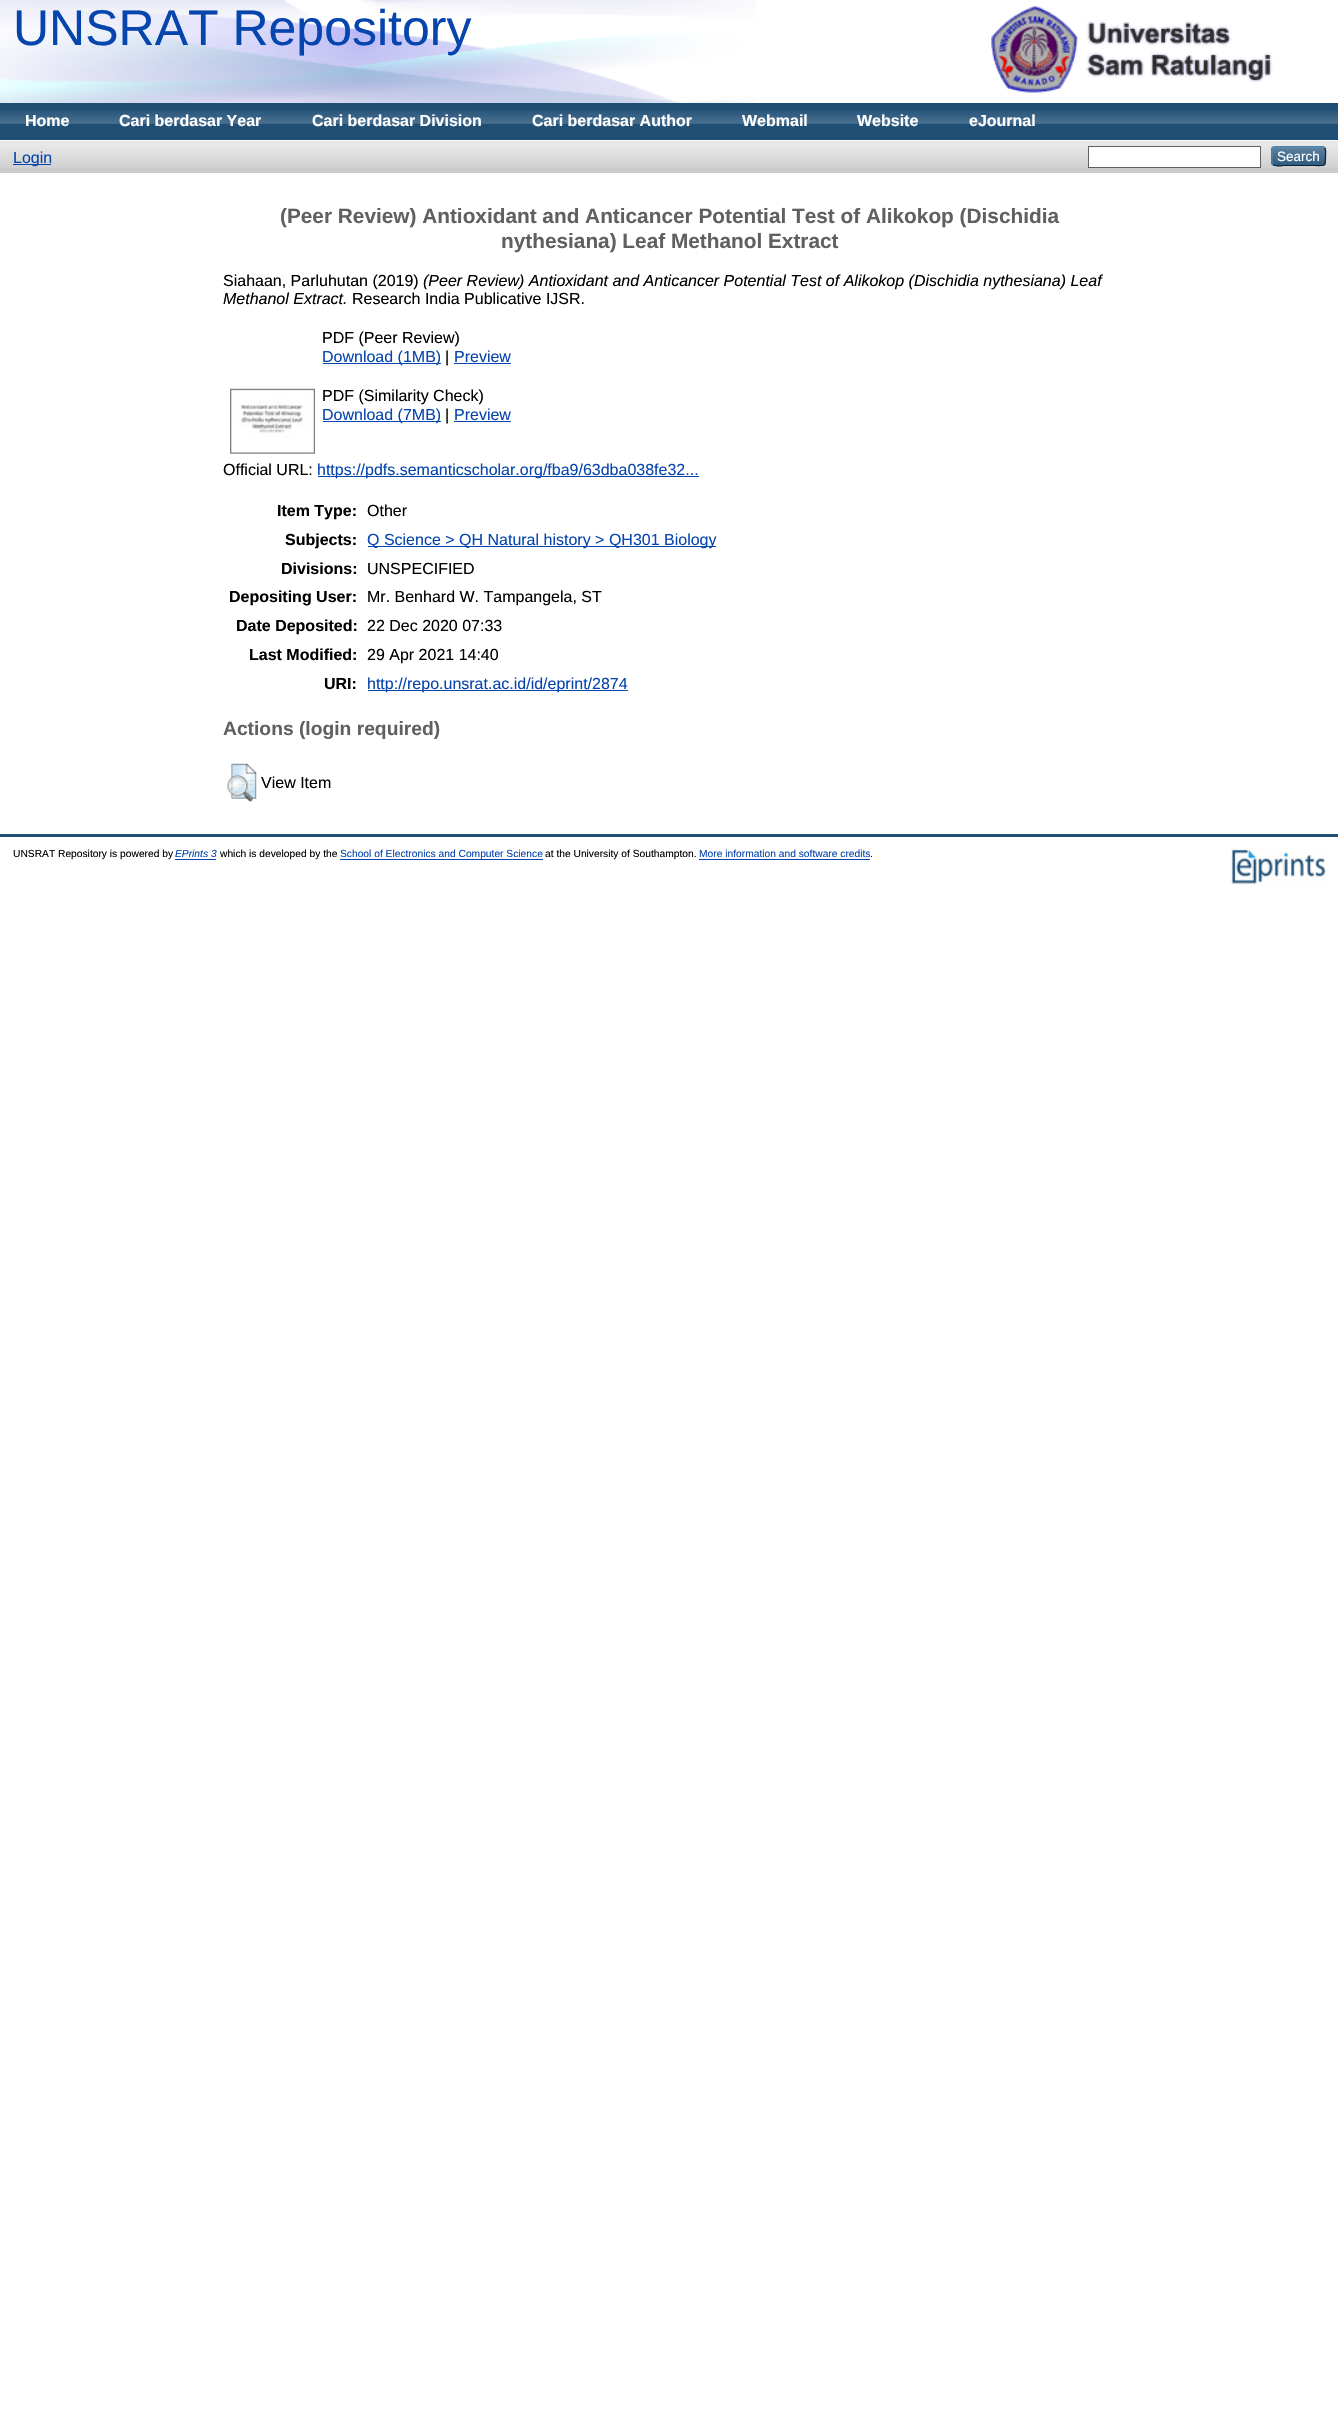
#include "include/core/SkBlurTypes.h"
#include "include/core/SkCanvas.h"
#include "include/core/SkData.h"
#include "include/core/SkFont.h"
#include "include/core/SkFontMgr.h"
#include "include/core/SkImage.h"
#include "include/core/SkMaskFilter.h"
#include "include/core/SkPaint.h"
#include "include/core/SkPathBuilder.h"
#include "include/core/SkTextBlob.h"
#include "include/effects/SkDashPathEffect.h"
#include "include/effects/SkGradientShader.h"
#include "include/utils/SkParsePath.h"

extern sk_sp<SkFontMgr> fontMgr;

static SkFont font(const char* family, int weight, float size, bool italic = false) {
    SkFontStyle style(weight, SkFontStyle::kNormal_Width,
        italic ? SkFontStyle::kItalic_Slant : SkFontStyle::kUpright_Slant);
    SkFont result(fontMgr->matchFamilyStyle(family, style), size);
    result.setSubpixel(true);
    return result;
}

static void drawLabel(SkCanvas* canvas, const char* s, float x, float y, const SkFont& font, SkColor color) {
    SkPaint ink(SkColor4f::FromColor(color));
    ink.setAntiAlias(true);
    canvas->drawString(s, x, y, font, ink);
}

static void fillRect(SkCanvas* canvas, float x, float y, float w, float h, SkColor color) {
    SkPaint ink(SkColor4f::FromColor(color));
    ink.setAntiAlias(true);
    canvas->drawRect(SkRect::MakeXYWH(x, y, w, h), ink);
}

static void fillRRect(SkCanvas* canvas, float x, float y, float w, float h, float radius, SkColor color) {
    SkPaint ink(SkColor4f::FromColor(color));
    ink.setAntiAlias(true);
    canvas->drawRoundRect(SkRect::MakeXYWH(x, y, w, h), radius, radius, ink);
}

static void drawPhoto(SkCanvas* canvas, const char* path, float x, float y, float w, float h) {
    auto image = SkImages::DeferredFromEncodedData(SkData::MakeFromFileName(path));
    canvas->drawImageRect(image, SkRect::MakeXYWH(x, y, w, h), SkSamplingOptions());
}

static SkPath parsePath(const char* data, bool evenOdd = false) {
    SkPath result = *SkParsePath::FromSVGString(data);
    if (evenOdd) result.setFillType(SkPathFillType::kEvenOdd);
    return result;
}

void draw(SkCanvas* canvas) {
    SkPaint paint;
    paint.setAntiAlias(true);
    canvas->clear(0xFFFFFFFF);
    drawPhoto(canvas, "assets/img1.png", 0, 0, 756, 103);
    SkFont font1 = font("Liberation Sans", 400, 50);
    drawLabel(canvas, "UNSRAT Repository", 13, 45, font1, 0xFF0645AD);
    drawPhoto(canvas, "assets/img2.png", 991, 6, 282, 87);
    fillRect(canvas, 0, 103, 1338, 37, 0xFF204F76);
    drawPhoto(canvas, "assets/img3.png", 0, 110, 1338, 14);
    SkFont font2 = font("Liberation Sans", 700, 16);
    drawLabel(canvas, "Home", 25, 126, font2, 0xFFFFFFFF);
    drawLabel(canvas, "Cari berdasar Year", 119, 126, font2, 0xFFFFFFFF);
    drawLabel(canvas, "Cari berdasar Division", 312, 126, font2, 0xFFFFFFFF);
    drawLabel(canvas, "Cari berdasar Author", 532, 126, font2, 0xFFFFFFFF);
    drawLabel(canvas, "Webmail", 742, 126, font2, 0xFFFFFFFF);
    drawLabel(canvas, "Website", 857, 126, font2, 0xFFFFFFFF);
    drawLabel(canvas, "eJournal", 969, 126, font2, 0xFFFFFFFF);
    fillRect(canvas, 0, 141, 1338, 32, 0xFFCCCCCC);
    drawPhoto(canvas, "assets/img4.png", 0, 141, 1338, 27);
    fillRect(canvas, 13, 164, 38, 1, 0xFF0645AD);
    SkFont font3 = font("Liberation Sans", 400, 16);
    drawLabel(canvas, "Login", 13, 163, font3, 0xFF0645AD);
    paint.setColor(0xFFFFFFFF);
    canvas->drawRect(SkRect::MakeXYWH(1088.5f, 146.5f, 172, 21), paint);
    paint.setStroke(true);
    paint.setStrokeWidth(1);
    paint.setColor(0xFF606060);
    canvas->drawRect(SkRect::MakeXYWH(1088.5f, 146.5f, 172, 21), paint);
    fillRRect(canvas, 1271, 146, 55, 20, 4, 0xFF1F4F76);
    drawPhoto(canvas, "assets/img5.png", 1271, 146, 55, 20);
    paint.setStrokeWidth(1.2f);
    paint.setColor(0xFF5B97C7);
    canvas->drawPath(parsePath("M1273 148L1274.5 147H1323L1324.5 148"), paint);
    paint.setColor(0xFF0D2131);
    canvas->drawPath(parsePath("M1324.5 148C1326.5 150 1325.5 154 1325.5 156C1325.5 167 1326 165.5 1314.5 165.5H1283C1282.5 165.5 1275 167 1273 164.5"), paint);
    paint.setColor(0xFF5287B3);
    canvas->drawPath(parsePath("M1273 164.5C1271 163 1272 158.5 1272 156C1272 154 1271 149.5 1273 148"), paint);
    SkFont font4 = font("Liberation Sans", 400, 13.5f);
    drawLabel(canvas, "Search", 1277, 161, font4, 0xFFFFFFFF);
    SkFont font5 = font("Liberation Sans", 700, 20.8f);
    drawLabel(canvas, "(Peer Review) Antioxidant and Anticancer Potential Test of Alikokop (Dischidia", 280, 223, font5, 0xFF606060);
    drawLabel(canvas, "nythesiana) Leaf Methanol Extract", 501, 248, font5, 0xFF606060);
    drawLabel(canvas, "Siahaan, Parluhutan (2019)", 223, 286, font3, 0xFF000000);
    SkFont font6 = font("Liberation Sans", 400, 16, true);
    drawLabel(canvas, "(Peer Review) Antioxidant and Anticancer Potential Test of Alikokop (Dischidia nythesiana) Leaf", 423, 286, font6, 0xFF000000);
    drawLabel(canvas, "Methanol Extract.", 223, 304, font6, 0xFF000000);
    drawLabel(canvas, "Research India Publicative IJSR.", 352, 304, font3, 0xFF000000);
    drawLabel(canvas, "PDF (Peer Review)", 322, 343, font3, 0xFF000000);
    fillRect(canvas, 323, 363, 118, 1, 0xFF0645AD);
    drawLabel(canvas, "Download (1MB)", 322, 362, font3, 0xFF0645AD);
    drawLabel(canvas, "|", 445, 362, font3, 0xFF000000);
    drawLabel(canvas, "Preview", 454, 362, font3, 0xFF0645AD);
    fillRect(canvas, 454, 363, 57, 1, 0xFF0645AD);
    drawPhoto(canvas, "assets/img6.png", 230, 388, 85, 66);
    drawLabel(canvas, "PDF (Similarity Check)", 322, 401, font3, 0xFF000000);
    fillRect(canvas, 323, 421, 118, 1, 0xFF0645AD);
    drawLabel(canvas, "Download (7MB)", 322, 420, font3, 0xFF0645AD);
    drawLabel(canvas, "|", 445, 420, font3, 0xFF000000);
    drawLabel(canvas, "Preview", 454, 420, font3, 0xFF0645AD);
    fillRect(canvas, 454, 421, 57, 1, 0xFF0645AD);
    drawLabel(canvas, "Official URL:", 223, 475, font3, 0xFF000000);
    fillRect(canvas, 318, 476, 381, 1, 0xFF0645AD);
    drawLabel(canvas, "https://pdfs.semanticscholar.org/fba9/63dba038fe32...", 317, 475, font3, 0xFF0645AD);
    drawLabel(canvas, "Item Type:", 277, 516, font2, 0xFF000000);
    drawLabel(canvas, "Other", 367, 516, font3, 0xFF000000);
    drawLabel(canvas, "Subjects:", 285, 545, font2, 0xFF000000);
    fillRect(canvas, 368, 546, 348, 1, 0xFF0645AD);
    drawLabel(canvas, "Q Science > QH Natural history > QH301 Biology", 367, 545, font3, 0xFF0645AD);
    drawLabel(canvas, "Divisions:", 281, 574, font2, 0xFF000000);
    drawLabel(canvas, "UNSPECIFIED", 367, 574, font3, 0xFF000000);
    drawLabel(canvas, "Depositing User:", 229, 602, font2, 0xFF000000);
    drawLabel(canvas, "Mr. Benhard W. Tampangela, ST", 367, 602, font3, 0xFF000000);
    drawLabel(canvas, "Date Deposited:", 236, 631, font2, 0xFF000000);
    drawLabel(canvas, "22 Dec 2020 07:33", 367, 631, font3, 0xFF000000);
    drawLabel(canvas, "Last Modified:", 249, 660, font2, 0xFF000000);
    drawLabel(canvas, "29 Apr 2021 14:40", 367, 660, font3, 0xFF000000);
    drawLabel(canvas, "URI:", 324, 689, font2, 0xFF000000);
    fillRect(canvas, 368, 690, 260, 1, 0xFF0645AD);
    drawLabel(canvas, "http://repo.unsrat.ac.id/id/eprint/2874", 367, 689, font3, 0xFF0645AD);
    SkFont font7 = font("Liberation Sans", 700, 19.25f);
    drawLabel(canvas, "Actions (login required)", 223, 735, font7, 0xFF606060);
    drawPhoto(canvas, "assets/img7.png", 227, 763, 30, 39);
    drawLabel(canvas, "View Item", 261, 788, font3, 0xFF000000);
    fillRect(canvas, 0, 834, 1338, 3, 0xFF204F76);
    SkFont font8 = font("Liberation Sans", 400, 10.25f);
    drawLabel(canvas, "UNSRAT Repository is powered by", 13, 857, font8, 0xFF000000);
    SkFont font9 = font("Liberation Sans", 400, 10.25f, true);
    drawLabel(canvas, "EPrints 3", 175, 857, font9, 0xFF0645AD);
    fillRect(canvas, 175, 859, 41, 1, 0xFF0645AD);
    drawLabel(canvas, "which is developed by the", 220, 857, font8, 0xFF000000);
    fillRect(canvas, 340, 859, 203, 1, 0xFF0645AD);
    drawLabel(canvas, "School of Electronics and Computer Science", 340, 857, font8, 0xFF0645AD);
    drawLabel(canvas, "at the University of Southampton.", 545, 857, font8, 0xFF000000);
    drawLabel(canvas, "More information and software credits", 699, 857, font8, 0xFF0645AD);
    fillRect(canvas, 699, 859, 171, 1, 0xFF0645AD);
    drawLabel(canvas, ".", 870, 857, font8, 0xFF000000);
    drawPhoto(canvas, "assets/img8.png", 1230, 849, 96, 36);
}
